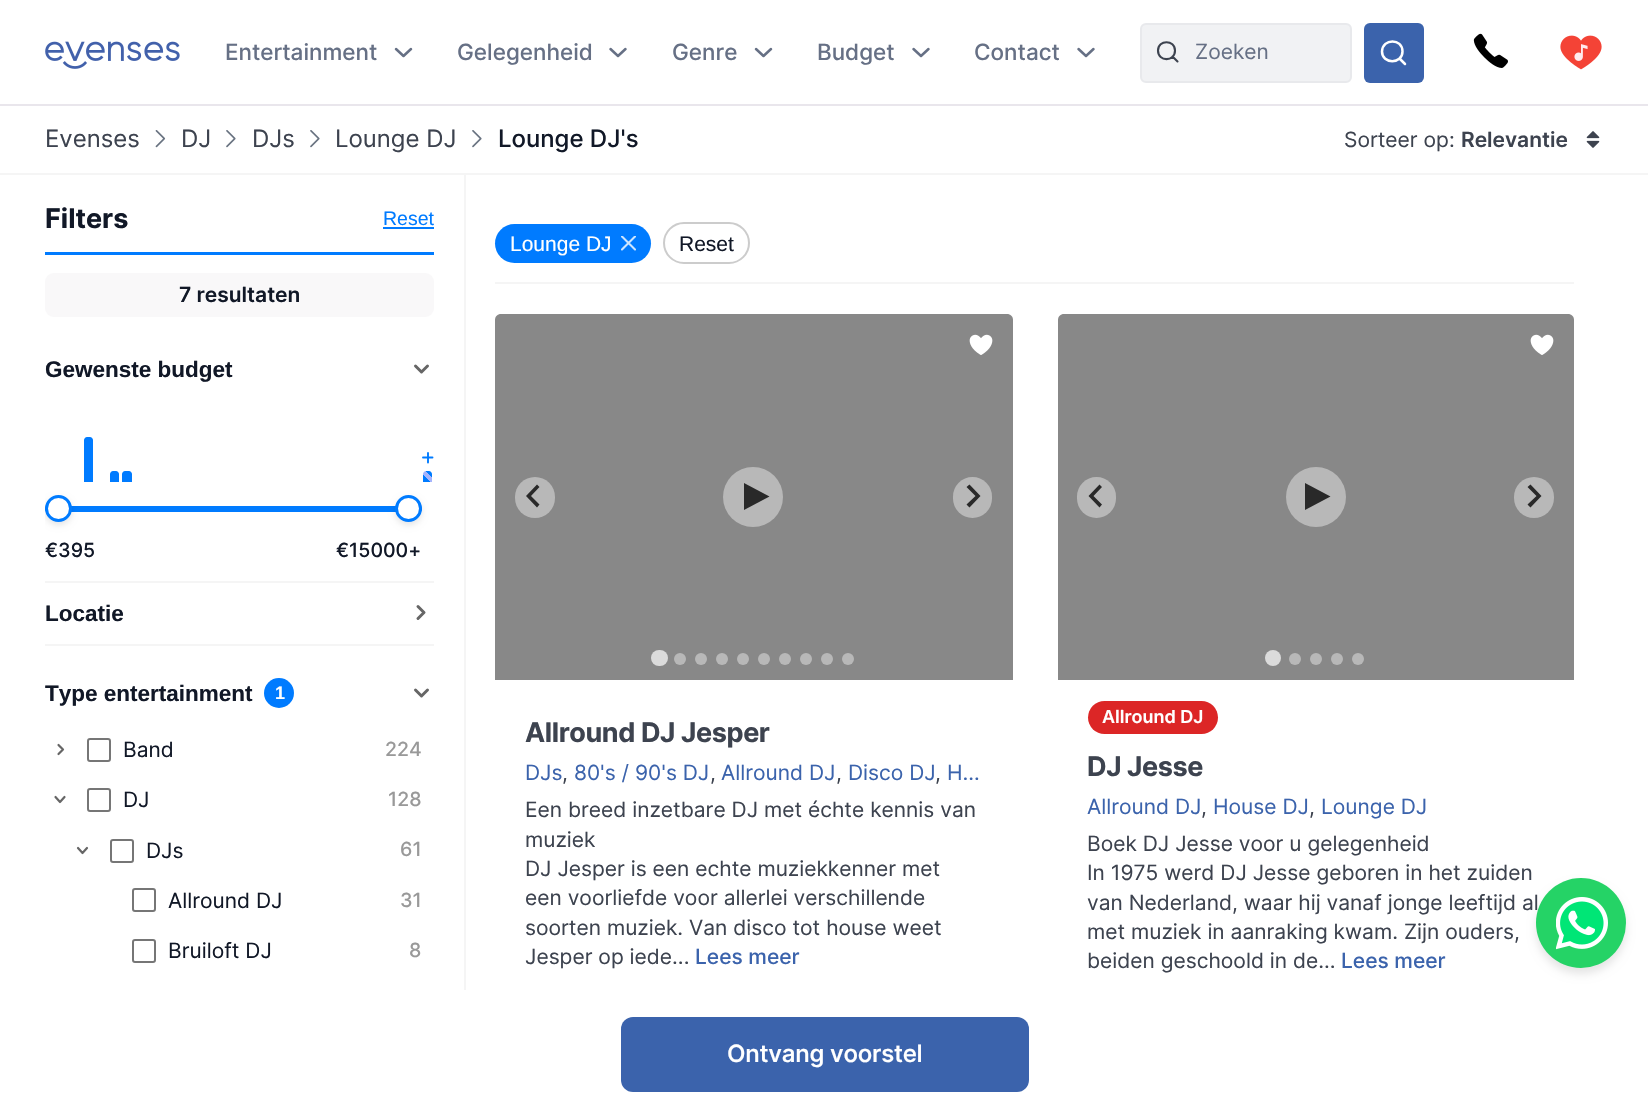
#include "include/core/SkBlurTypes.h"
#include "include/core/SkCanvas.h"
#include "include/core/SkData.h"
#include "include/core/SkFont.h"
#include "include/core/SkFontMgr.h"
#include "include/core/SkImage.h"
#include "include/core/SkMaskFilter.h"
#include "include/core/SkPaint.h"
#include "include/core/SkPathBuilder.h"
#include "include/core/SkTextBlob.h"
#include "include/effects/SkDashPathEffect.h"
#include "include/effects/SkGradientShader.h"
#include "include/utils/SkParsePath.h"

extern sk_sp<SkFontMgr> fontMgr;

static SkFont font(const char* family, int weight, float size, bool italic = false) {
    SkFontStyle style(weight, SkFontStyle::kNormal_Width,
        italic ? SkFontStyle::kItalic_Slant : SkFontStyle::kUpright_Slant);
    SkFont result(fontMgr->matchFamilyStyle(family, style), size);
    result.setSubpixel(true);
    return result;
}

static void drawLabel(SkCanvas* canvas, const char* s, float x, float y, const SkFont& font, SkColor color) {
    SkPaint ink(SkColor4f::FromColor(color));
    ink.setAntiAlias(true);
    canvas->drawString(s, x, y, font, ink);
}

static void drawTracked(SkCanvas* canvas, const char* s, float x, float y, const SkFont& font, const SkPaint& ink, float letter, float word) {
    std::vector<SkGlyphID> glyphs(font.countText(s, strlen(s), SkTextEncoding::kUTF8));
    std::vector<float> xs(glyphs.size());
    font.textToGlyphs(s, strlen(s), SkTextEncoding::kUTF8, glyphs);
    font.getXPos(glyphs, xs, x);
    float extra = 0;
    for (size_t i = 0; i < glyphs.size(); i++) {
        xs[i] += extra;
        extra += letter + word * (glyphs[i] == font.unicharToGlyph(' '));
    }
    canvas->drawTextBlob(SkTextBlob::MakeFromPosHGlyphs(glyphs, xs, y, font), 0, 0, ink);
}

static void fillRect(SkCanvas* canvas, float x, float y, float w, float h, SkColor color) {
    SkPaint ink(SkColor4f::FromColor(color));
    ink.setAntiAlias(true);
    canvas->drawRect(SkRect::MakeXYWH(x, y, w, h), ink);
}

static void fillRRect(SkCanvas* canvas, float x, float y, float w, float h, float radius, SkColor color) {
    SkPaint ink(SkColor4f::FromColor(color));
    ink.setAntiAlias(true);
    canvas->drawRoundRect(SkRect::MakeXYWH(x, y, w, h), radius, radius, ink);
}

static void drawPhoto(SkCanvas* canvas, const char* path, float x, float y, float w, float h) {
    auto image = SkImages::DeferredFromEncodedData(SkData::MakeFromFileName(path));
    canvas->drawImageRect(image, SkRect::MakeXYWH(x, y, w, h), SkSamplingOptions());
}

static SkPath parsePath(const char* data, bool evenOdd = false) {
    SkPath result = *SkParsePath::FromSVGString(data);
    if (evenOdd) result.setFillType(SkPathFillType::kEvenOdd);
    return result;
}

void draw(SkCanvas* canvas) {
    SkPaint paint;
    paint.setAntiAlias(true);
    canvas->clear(0xFFFFFFFF);
    fillRect(canvas, 0, 104, 1648, 2, 0xFFE9E6EC);
    drawPhoto(canvas, "assets/img1.png", 45, 41, 135, 28);
    SkFont font1 = font("Inter", 500, 22.5f);
    drawLabel(canvas, "Entertainment", 225, 60, font1, 0xFF667085);
    paint.setStroke(true);
    paint.setStrokeWidth(2.5f);
    paint.setStrokeCap(SkPaint::kRound_Cap);
    paint.setStrokeJoin(SkPaint::kRound_Join);
    paint.setColor(0xFF667085);
    canvas->drawPath(parsePath("M396 49L403.5 56L411 49"), paint);
    drawLabel(canvas, "Gelegenheid", 457, 60, font1, 0xFF667085);
    canvas->drawPath(parsePath("M610.5 49L618 56L625.5 49"), paint);
    drawLabel(canvas, "Genre", 672, 60, font1, 0xFF667085);
    canvas->drawPath(parsePath("M756 49L763.5 56L771 49"), paint);
    drawLabel(canvas, "Budget", 817, 60, font1, 0xFF667085);
    canvas->drawPath(parsePath("M913.5 49L921 56L928.5 49"), paint);
    drawLabel(canvas, "Contact", 974, 60, font1, 0xFF667085);
    canvas->drawPath(parsePath("M1078.5 49L1086 56L1093.5 49"), paint);
    paint.setStroke(false);
    paint.setColor(0xFFF1F2F4);
    canvas->drawRoundRect(SkRect::MakeXYWH(1141, 24, 210, 58), 5, 5, paint);
    paint.setStroke(true);
    paint.setStrokeWidth(2);
    paint.setStrokeCap(SkPaint::kButt_Cap);
    paint.setStrokeJoin(SkPaint::kMiter_Join);
    paint.setColor(0xFFE8E9EC);
    canvas->drawRoundRect(SkRect::MakeXYWH(1141, 24, 210, 58), 5, 5, paint);
    paint.setStrokeWidth(2.1f);
    paint.setStrokeCap(SkPaint::kRound_Cap);
    paint.setStrokeJoin(SkPaint::kRound_Join);
    paint.setColor(0xFF3D434F);
    canvas->drawPath(parsePath("M1177.5 61.5L1172.5 56.5M1175 50.5C1175 62 1158 62 1158 50.5C1158 39.5 1175 39.5 1175 50.5Z"), paint);
    SkFont font2 = font("Inter", 400, 21);
    drawLabel(canvas, "Zoeken", 1195, 59, font2, 0xFF667085);
    fillRRect(canvas, 1364, 23, 60, 60, 6, 0xFF3B63AC);
    paint.setStrokeWidth(2.5f);
    paint.setColor(0xFFFFFFFF);
    canvas->drawPath(parsePath("M1405 64L1399.5 58.5M1402.5 51.5C1402.5 64.5 1382 64.5 1382 51.5C1382.5 38 1402.5 38 1402.5 51.5Z"), paint);
    drawPhoto(canvas, "assets/img2.png", 1473, 33, 35, 35);
    drawPhoto(canvas, "assets/img3.png", 1560, 35, 42, 35);
    fillRect(canvas, 464, 174, 2, 816, 0xFFF5F5F5);
    fillRect(canvas, 0, 173, 1648, 2, 0xFFF5F5F5);
    SkFont font3 = font("Inter", 400, 24);
    drawLabel(canvas, "Evenses", 45, 147, font3, 0xFF3D434F);
    drawPhoto(canvas, "assets/img4.png", 155, 130, 11, 18);
    drawLabel(canvas, "DJ", 181, 147, font3, 0xFF3D434F);
    drawPhoto(canvas, "assets/img5.png", 226, 130, 10, 18);
    drawLabel(canvas, "DJs", 252, 147, font3, 0xFF3D434F);
    drawPhoto(canvas, "assets/img5.png", 310, 130, 10, 18);
    drawLabel(canvas, "Lounge DJ", 335, 147, font3, 0xFF3D434F);
    drawPhoto(canvas, "assets/img5.png", 472, 130, 10, 18);
    SkFont font4 = font("Inter", 500, 24);
    drawLabel(canvas, "Lounge DJ's", 498, 147, font4, 0xFF111827);
    drawLabel(canvas, "Sorteer op:", 1344, 147, font2, 0xFF3D434F);
    SkFont font5 = font("Inter", 600, 21);
    drawLabel(canvas, "Relevantie", 1461, 147, font5, 0xFF3D434F);
    drawPhoto(canvas, "assets/img6.png", 1586, 131, 14, 17);
    fillRect(canvas, 45, 252, 389, 3, 0xFF007BFF);
    SkFont font6 = font("Inter", 700, 27);
    drawLabel(canvas, "Filters", 45, 228, font6, 0xFF111827);
    SkFont font7 = font("Liberation Sans", 400, 19.5f);
    drawLabel(canvas, "Reset", 383, 225, font7, 0xFF007BFF);
    fillRect(canvas, 383, 227, 51, 2, 0xFF007BFF);
    fillRRect(canvas, 45, 273, 389, 44, 9, 0xFFF9F8F9);
    drawLabel(canvas, "7 resultaten", 179, 302, font5, 0xFF111827);
    fillRect(canvas, 45, 581, 389, 2, 0xFFF5F5F5);
    SkFont font8 = font("Liberation Sans", 700, 22.5f);
    drawLabel(canvas, "Gewenste budget", 45, 377, font8, 0xFF111827);
    paint.setStrokeWidth(3);
    paint.setColor(0xFF666666);
    canvas->drawPath(parsePath("M415.5 366L421.5 372L427.5 366"), paint);
    paint.setStroke(false);
    paint.setColor(0xFF007BFF);
    canvas->drawPath(parsePath("M87 437H90C91.5 437 93 438.5 93 440V482H84V440C84 438.5 85.5 437 87 437Z"), paint);
    canvas->drawPath(parsePath("M113 471H116C117.5 471 119 472.5 119 474V482H110V474C110 472.5 111.5 471 113 471Z"), paint);
    canvas->drawPath(parsePath("M125 471H129C130.5 471 132 472.5 132 474V482H122V474C122 472.5 123.5 471 125 471Z"), paint);
    {
        const SkColor colors[] = {0xFF007BFF, 0xFF007BFF, 0xFFA5B4FC, 0xFFA5B4FC, 0xFF007BFF, 0xFF007BFF, 0xFFA5B4FC, 0xFFA5B4FC};
        const float stops[] = {0, 0.25f, 0.25f, 0.5f, 0.5f, 0.75f, 0.75f, 1};
        const SkPoint ends[] = {{423, 481}, {435, 468}};
        paint.setShader(SkGradientShader::MakeLinear(ends, colors, stops, 8, SkTileMode::kClamp));
        paint.setAlpha(255);
    }
    canvas->drawPath(parsePath("M426 471H429C430.5 471 432 472.5 432 474V482H423V474C423 472.5 424.5 471 426 471Z"), paint);
    paint.setStroke(true);
    paint.setStrokeWidth(1.9f);
    paint.setStrokeJoin(SkPaint::kMiter_Join);
    paint.setShader(nullptr);
    paint.setColor(0xFF007BFF);
    canvas->drawPath(parsePath("M428 453V462.5M423 457.5H432.5"), paint);
    fillRRect(canvas, 45, 506, 377, 6, 3, 0xFF007BFF);
    canvas->save();
    canvas->clipRect(SkRect::MakeXYWH(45, 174, 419, 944));
    paint.setStroke(false);
    paint.setColor(0x1A000000);
    paint.setMaskFilter(SkMaskFilter::MakeBlur(kNormal_SkBlurStyle, 3));
    canvas->drawRoundRect(SkRect::MakeXYWH(45, 498, 27, 27), 13.5f, 13.5f, paint);
    paint.setMaskFilter(nullptr);
    canvas->restore();
    paint.setColor(0xFFFFFFFF);
    canvas->drawCircle(58.5f, 508.5f, 12, paint);
    paint.setStroke(true);
    paint.setStrokeWidth(3);
    paint.setStrokeCap(SkPaint::kButt_Cap);
    paint.setColor(0xFF007BFF);
    canvas->drawCircle(58.5f, 508.5f, 12, paint);
    paint.setStroke(false);
    paint.setColor(0x1A000000);
    paint.setMaskFilter(SkMaskFilter::MakeBlur(kNormal_SkBlurStyle, 3));
    canvas->drawRoundRect(SkRect::MakeXYWH(395, 498, 27, 27), 13.5f, 13.5f, paint);
    paint.setMaskFilter(nullptr);
    paint.setColor(0xFFFFFFFF);
    canvas->drawCircle(408.5f, 508.5f, 12, paint);
    paint.setStroke(true);
    paint.setColor(0xFF007BFF);
    canvas->drawCircle(408.5f, 508.5f, 12, paint);
    SkFont font9 = font("Inter", 500, 19.5f);
    drawLabel(canvas, "€395", 45, 557, font9, 0xFF111827);
    drawLabel(canvas, "€15000+", 336, 557, font9, 0xFF111827);
    fillRect(canvas, 45, 644, 389, 2, 0xFFF5F5F5);
    drawLabel(canvas, "Locatie", 45, 621, font8, 0xFF111827);
    paint.setStrokeCap(SkPaint::kRound_Cap);
    paint.setStrokeJoin(SkPaint::kRound_Join);
    paint.setColor(0xFF666666);
    canvas->drawPath(parsePath("M418 618.5L424 612.5L418 606.5"), paint);
    drawLabel(canvas, "Type entertainment", 45, 701, font8, 0xFF111827);
    paint.setStroke(false);
    paint.setColor(0xFF007BFF);
    canvas->drawCircle(279, 693, 15, paint);
    SkFont font10 = font("Liberation Sans", 700, 18);
    drawLabel(canvas, "1", 275, 699, font10, 0xFFFFFFFF);
    paint.setStroke(true);
    paint.setColor(0xFF666666);
    canvas->drawPath(parsePath("M415.5 690L421.5 696L427.5 690"), paint);
    paint.setStrokeWidth(2.2f);
    canvas->drawPath(parsePath("M58.5 754L63 749.5L58.5 745M55.5 797L60 802L64.5 797"), paint);
    paint.setStrokeWidth(2);
    paint.setStrokeCap(SkPaint::kButt_Cap);
    paint.setStrokeJoin(SkPaint::kMiter_Join);
    paint.setColor(0xFF767676);
    canvas->drawRoundRect(SkRect::MakeXYWH(88, 739, 22, 22), 2, 2, paint);
    drawLabel(canvas, "Band", 123, 757, font2, 0xFF111827);
    drawLabel(canvas, "224", 385, 756, font9, 0xFF999999);
    canvas->drawRoundRect(SkRect::MakeXYWH(88, 789, 22, 22), 2, 2, paint);
    drawLabel(canvas, "DJ", 123, 807, font2, 0xFF111827);
    drawLabel(canvas, "128", 388, 806, font9, 0xFF999999);
    paint.setStrokeWidth(2.2f);
    paint.setStrokeCap(SkPaint::kRound_Cap);
    paint.setStrokeJoin(SkPaint::kRound_Join);
    paint.setColor(0xFF666666);
    canvas->drawPath(parsePath("M78 848L82.5 853L87 848"), paint);
    paint.setStrokeWidth(2);
    paint.setStrokeCap(SkPaint::kButt_Cap);
    paint.setStrokeJoin(SkPaint::kMiter_Join);
    paint.setColor(0xFF767676);
    canvas->drawRoundRect(SkRect::MakeXYWH(111, 840, 22, 22), 2, 2, paint);
    drawLabel(canvas, "DJs", 146, 858, font2, 0xFF111827);
    drawLabel(canvas, "61", 400, 856, font9, 0xFF999999);
    canvas->drawRoundRect(SkRect::MakeXYWH(133, 889, 22, 22), 2, 2, paint);
    drawLabel(canvas, "Allround DJ", 168, 908, font2, 0xFF111827);
    drawLabel(canvas, "31", 400, 907, font9, 0xFF999999);
    canvas->drawRoundRect(SkRect::MakeXYWH(133, 940, 22, 22), 2, 2, paint);
    drawLabel(canvas, "Bruiloft DJ", 168, 958, font2, 0xFF111827);
    drawLabel(canvas, "8", 409, 957, font9, 0xFF999999);
    fillRect(canvas, 495, 282, 1079, 2, 0xFFF5F5F5);
    fillRRect(canvas, 495, 224, 156, 39, 19.5f, 0xFF007BFF);
    SkFont font11 = font("Liberation Sans", 400, 21);
    drawLabel(canvas, "Lounge DJ", 510, 251, font11, 0xFFFFFFFF);
    canvas->save();
    canvas->clipRect(SkRect::MakeXYWH(621, 236, 15, 15));
    paint.setStrokeWidth(2.1f);
    paint.setStrokeCap(SkPaint::kRound_Cap);
    paint.setColor(0xFFCCE5FF);
    canvas->drawPath(parsePath("M635 236.5L622 249.5M622 236.5L635 249.5"), paint);
    canvas->restore();
    paint.setStrokeWidth(2);
    paint.setStrokeCap(SkPaint::kButt_Cap);
    paint.setColor(0xFFCCCCCC);
    canvas->drawRoundRect(SkRect::MakeXYWH(664, 223, 85, 40), 20, 20, paint);
    drawLabel(canvas, "Reset", 679, 251, font11, 0xFF111827);
    paint.setStroke(false);
    paint.setColor(0xFF888888);
    canvas->drawPath(parsePath("M501 314H1007C1010.5 314 1013 316.5 1013 320V680H495V320C495 316.5 497.5 314 501 314Z"), paint);
    drawPhoto(canvas, "assets/img7.png", 969, 334, 24, 21);
    paint.setColor(0xFFB8B8B8);
    canvas->drawCircle(753, 497, 30, paint);
    paint.setColor(0xFF292929);
    canvas->drawPath(parsePath("M744 510V483L769.5 496.5Z"), paint);
    fillRRect(canvas, 515, 477, 40, 41, 20, 0xFFB8B8B8);
    canvas->drawPath(parsePath("M537 484.5L539.5 487L531 496L539.5 504.5L537 507.5L526 496Z"), paint);
    fillRRect(canvas, 953, 477, 39, 41, 19.5f, 0xFFB8B8B8);
    canvas->drawPath(parsePath("M969.5 484.5L966.5 487L975.5 496L966.5 504.5L969.5 507.5L980.5 496Z"), paint);
    fillRRect(canvas, 651, 650, 17, 16, 8, 0xFFDBDBDB);
    paint.setColor(0xFFB8B8B8);
    canvas->drawCircle(680, 659, 6, paint);
    canvas->drawCircle(701, 659, 6, paint);
    canvas->drawCircle(722, 659, 6, paint);
    canvas->drawCircle(743, 659, 6, paint);
    canvas->drawCircle(764, 659, 6, paint);
    canvas->drawCircle(785, 659, 6, paint);
    canvas->drawCircle(806, 659, 6, paint);
    canvas->drawCircle(827, 659, 6, paint);
    canvas->drawCircle(848, 659, 6, paint);
    paint.setColor(0xFF3D434F);
    drawTracked(canvas, "Allround DJ Jesper", 525, 742, font6, paint, -0.4f, 0);
    drawLabel(canvas, "DJs", 525, 780, font2, 0xFF3B63AC);
    drawLabel(canvas, ",", 562, 780, font2, 0xFF3D434F);
    drawLabel(canvas, "80's / 90's DJ", 574, 780, font2, 0xFF3B63AC);
    drawLabel(canvas, ",", 710, 780, font2, 0xFF3D434F);
    drawLabel(canvas, "Allround DJ", 721, 780, font2, 0xFF3B63AC);
    drawLabel(canvas, ",", 836, 780, font2, 0xFF3D434F);
    drawLabel(canvas, "Disco DJ", 848, 780, font2, 0xFF3B63AC);
    drawLabel(canvas, ",", 935, 780, font2, 0xFF3D434F);
    drawLabel(canvas, "H…", 947, 780, font2, 0xFF3B63AC);
    drawLabel(canvas, "Een breed inzetbare DJ met échte kennis van", 525, 817, font2, 0xFF3D434F);
    drawLabel(canvas, "muziek", 525, 847, font2, 0xFF3D434F);
    drawLabel(canvas, "DJ Jesper is een echte muziekkenner met", 525, 876, font2, 0xFF3D434F);
    drawLabel(canvas, "een voorliefde voor allerlei verschillende", 525, 905, font2, 0xFF3D434F);
    drawLabel(canvas, "soorten muziek. Van disco tot house weet", 525, 935, font2, 0xFF3D434F);
    drawLabel(canvas, "Jesper op iede...", 525, 964, font2, 0xFF3D434F);
    SkFont font12 = font("Inter", 500, 21);
    drawLabel(canvas, "Lees meer", 695, 964, font12, 0xFF3B63AC);
    paint.setColor(0xFF888888);
    canvas->drawPath(parsePath("M1064 314H1568C1571.5 314 1574 316.5 1574 320V680H1058V320C1058 316.5 1060.5 314 1064 314Z"), paint);
    drawPhoto(canvas, "assets/img7.png", 1530, 334, 24, 21);
    paint.setColor(0xFFB8B8B8);
    canvas->drawCircle(1316, 497, 30, paint);
    paint.setColor(0xFF292929);
    canvas->drawPath(parsePath("M1305 510V483L1330.5 496.5Z"), paint);
    fillRRect(canvas, 1077, 477, 39, 41, 19.5f, 0xFFB8B8B8);
    canvas->drawPath(parsePath("M1099.5 484.5L1102 487L1093.5 496L1102 504.5L1099.5 507.5L1088.5 496Z"), paint);
    fillRRect(canvas, 1514, 477, 40, 41, 20, 0xFFB8B8B8);
    canvas->drawPath(parsePath("M1530.5 484.5L1527.5 487L1536.5 496L1527.5 504.5L1530.5 507.5L1541.5 496Z"), paint);
    paint.setColor(0xFFDBDBDB);
    canvas->drawCircle(1273, 658, 8, paint);
    paint.setColor(0xFFB8B8B8);
    canvas->drawCircle(1295, 659, 6, paint);
    canvas->drawCircle(1316, 659, 6, paint);
    canvas->drawCircle(1337, 659, 6, paint);
    canvas->drawCircle(1358, 659, 6, paint);
    fillRRect(canvas, 1088, 701, 130, 33, 16.5f, 0xFFDC2626);
    SkFont font13 = font("Inter", 600, 18);
    drawLabel(canvas, "Allround DJ", 1102, 723, font13, 0xFFFFFFFF);
    paint.setColor(0xFF3D434F);
    drawTracked(canvas, "DJ Jesse", 1087, 776, font6, paint, -0.4f, 0);
    drawLabel(canvas, "Allround DJ", 1087, 814, font2, 0xFF3B63AC);
    drawLabel(canvas, ",", 1201, 814, font2, 0xFF3D434F);
    drawLabel(canvas, "House DJ", 1213, 814, font2, 0xFF3B63AC);
    drawLabel(canvas, ",", 1309, 814, font2, 0xFF3D434F);
    drawLabel(canvas, "Lounge DJ", 1321, 814, font2, 0xFF3B63AC);
    drawLabel(canvas, "Boek DJ Jesse voor u gelegenheid", 1087, 851, font2, 0xFF3D434F);
    drawLabel(canvas, "In 1975 werd DJ Jesse geboren in het zuiden", 1087, 880, font2, 0xFF3D434F);
    drawLabel(canvas, "van Nederland, waar hij vanaf jonge leeftijd al", 1087, 910, font2, 0xFF3D434F);
    drawLabel(canvas, "met muziek in aanraking kwam. Zijn ouders,", 1087, 939, font2, 0xFF3D434F);
    drawLabel(canvas, "beiden geschoold in de...", 1087, 968, font2, 0xFF3D434F);
    drawLabel(canvas, "Lees meer", 1341, 968, font12, 0xFF3B63AC);
    fillRRect(canvas, 621, 1017, 408, 75, 12, 0xFF3B63AC);
    SkFont font14 = font("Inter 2", 500, 24);
    paint.setColor(0xFFFFFFFF);
    drawTracked(canvas, "Ontvang voorstel", 727, 1062, font14, paint, -0.25f, 0);
    paint.setColor(0x1A000000);
    paint.setMaskFilter(SkMaskFilter::MakeBlur(kNormal_SkBlurStyle, 4.5f));
    canvas->drawRoundRect(SkRect::MakeXYWH(1536, 884, 90, 90), 45, 45, paint);
    paint.setMaskFilter(nullptr);
    paint.setColor(0xFF25D366);
    canvas->drawCircle(1581, 923, 45, paint);
    drawPhoto(canvas, "assets/img8.png", 1556, 897, 52, 53);
}
